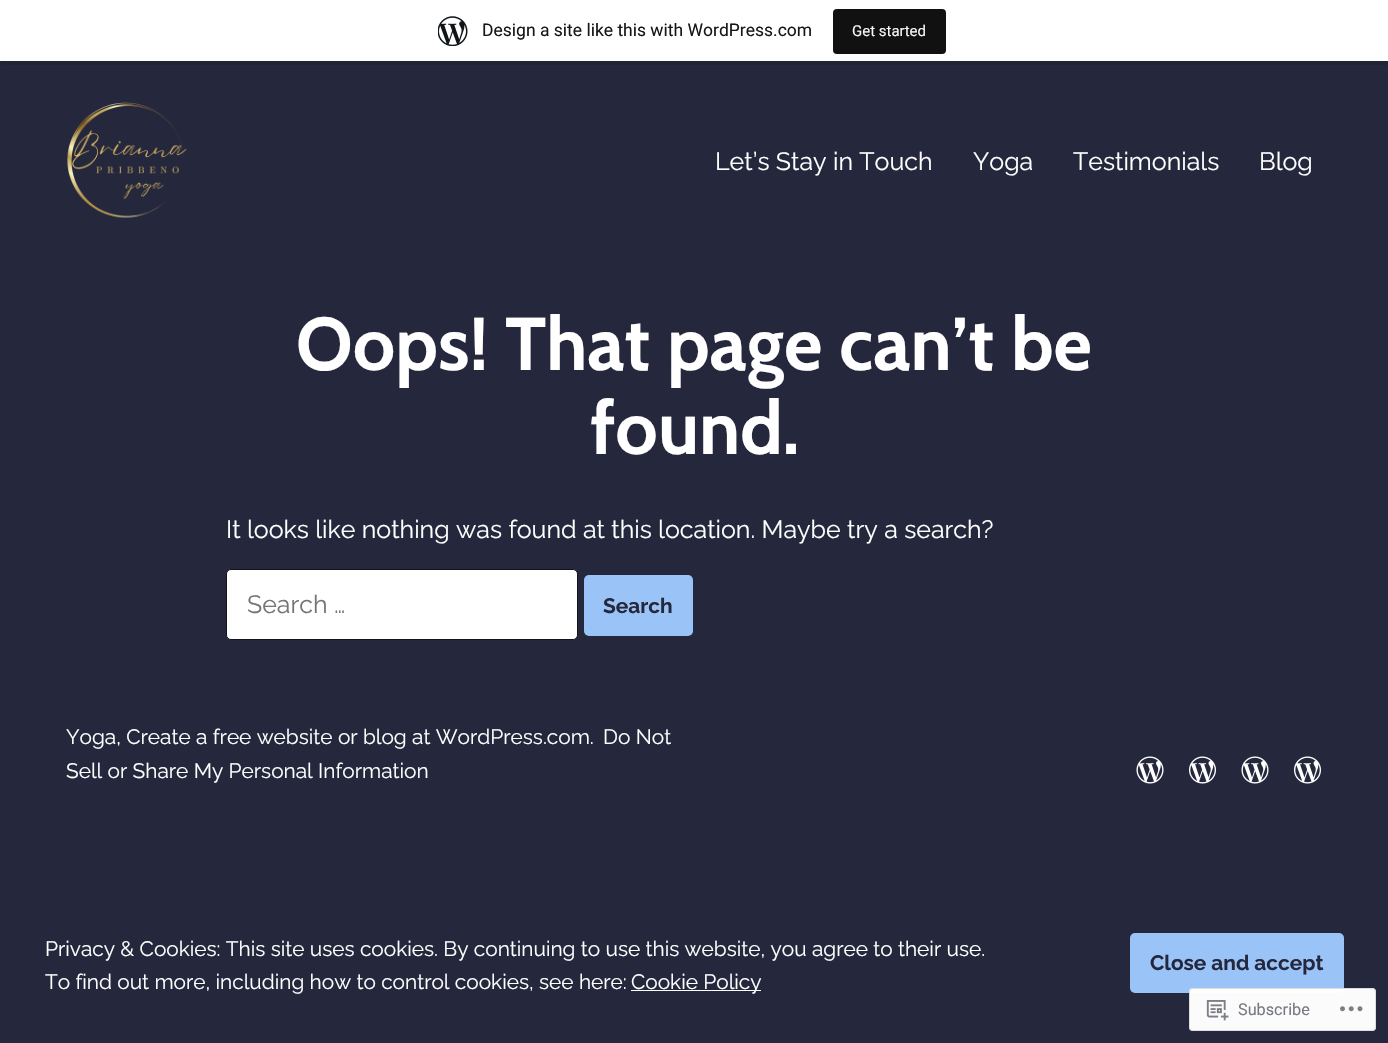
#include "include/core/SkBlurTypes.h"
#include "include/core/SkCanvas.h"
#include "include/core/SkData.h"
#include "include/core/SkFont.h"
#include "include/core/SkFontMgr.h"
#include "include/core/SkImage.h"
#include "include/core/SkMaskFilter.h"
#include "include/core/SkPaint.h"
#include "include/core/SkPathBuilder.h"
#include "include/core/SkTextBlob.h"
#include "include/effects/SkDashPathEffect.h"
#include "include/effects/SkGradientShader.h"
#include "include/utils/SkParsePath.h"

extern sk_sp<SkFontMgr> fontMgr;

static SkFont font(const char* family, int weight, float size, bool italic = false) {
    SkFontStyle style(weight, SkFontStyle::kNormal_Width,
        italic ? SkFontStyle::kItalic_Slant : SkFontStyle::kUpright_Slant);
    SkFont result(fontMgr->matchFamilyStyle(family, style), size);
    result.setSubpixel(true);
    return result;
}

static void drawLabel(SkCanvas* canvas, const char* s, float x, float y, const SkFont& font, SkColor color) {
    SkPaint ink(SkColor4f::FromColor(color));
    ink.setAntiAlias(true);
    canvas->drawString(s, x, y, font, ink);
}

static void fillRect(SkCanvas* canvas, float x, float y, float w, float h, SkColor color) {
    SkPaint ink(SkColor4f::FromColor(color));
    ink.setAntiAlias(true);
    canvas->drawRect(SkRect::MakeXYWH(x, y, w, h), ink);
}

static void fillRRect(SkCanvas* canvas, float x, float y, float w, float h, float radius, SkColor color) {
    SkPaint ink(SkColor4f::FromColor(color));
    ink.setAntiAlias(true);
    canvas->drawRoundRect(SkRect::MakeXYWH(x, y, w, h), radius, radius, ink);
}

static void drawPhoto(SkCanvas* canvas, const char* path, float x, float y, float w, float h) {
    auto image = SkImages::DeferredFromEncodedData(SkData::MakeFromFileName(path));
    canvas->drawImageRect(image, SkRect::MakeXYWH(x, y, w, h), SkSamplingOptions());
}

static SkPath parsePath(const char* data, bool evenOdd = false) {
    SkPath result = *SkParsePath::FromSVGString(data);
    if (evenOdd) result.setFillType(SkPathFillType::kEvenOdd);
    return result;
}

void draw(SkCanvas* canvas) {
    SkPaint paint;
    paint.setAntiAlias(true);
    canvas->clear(0xFF25283D);
    paint.setColor(0xFF212437);
    canvas->drawPath(parsePath("M1 61V65H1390V4H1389V61Z"), paint);
    fillRect(canvas, 0, 0, 1388, 61, 0xFFFFFFFF);
    drawPhoto(canvas, "assets/img1.png", 438, 16, 30, 30);
    SkFont font1 = font("Roboto", 400, 17.5f);
    drawLabel(canvas, "Design a site like this with WordPress.com", 482, 36, font1, 0xFF171717);
    fillRRect(canvas, 833, 9, 113, 45, 4, 0xFF111111);
    SkFont font2 = font("Roboto", 400, 15);
    drawLabel(canvas, "Get started", 852, 36, font2, 0xFFF6F7F7);
    drawPhoto(canvas, "assets/img2.png", 67, 102, 120, 116);
    SkFont font3 = font("Raleway", 400, 25);
    drawLabel(canvas, "Let’s Stay in Touch", 715, 170, font3, 0xFFFFFFFF);
    drawLabel(canvas, "Yoga", 973, 170, font3, 0xFFFFFFFF);
    drawLabel(canvas, "Testimonials", 1073, 170, font3, 0xFFFFFFFF);
    drawLabel(canvas, "Blog", 1259, 170, font3, 0xFFFFFFFF);
    SkFont font4 = font("Cabin", 700, 74.6f);
    drawLabel(canvas, "Oops! That page can’t be", 296, 370, font4, 0xFFFFFFFF);
    drawLabel(canvas, "found.", 590, 454, font4, 0xFFFFFFFF);
    drawLabel(canvas, "It looks like nothing was found at this location. Maybe try a search?", 226, 538, font3, 0xFFFFFFFF);
    paint.setColor(0xFFFFFFFF);
    canvas->drawRoundRect(SkRect::MakeXYWH(226.5f, 569.5f, 351, 70), 4.5f, 4.5f, paint);
    paint.setStroke(true);
    paint.setStrokeWidth(1);
    paint.setColor(0xFF11121C);
    canvas->drawRoundRect(SkRect::MakeXYWH(226.5f, 569.5f, 351, 70), 4.5f, 4.5f, paint);
    drawLabel(canvas, "Search …", 247, 613, font3, 0xFF757575);
    fillRRect(canvas, 584, 575, 109, 61, 5, 0xFF9AC4F8);
    SkFont font5 = font("Raleway", 700, 20.85f);
    drawLabel(canvas, "Search", 603, 613, font5, 0xFF25283D);
    SkFont font6 = font("Raleway", 400, 20.85f);
    drawLabel(canvas, "Yoga, Create a free website or blog at WordPress.com.", 66, 744, font6, 0xFFFFFFFF);
    drawLabel(canvas, "Do Not", 603, 744, font6, 0xFFFFFFFF);
    drawLabel(canvas, "Sell or Share My Personal Information", 66, 778, font6, 0xFFFFFFFF);
    drawPhoto(canvas, "assets/img3.png", 1136, 756, 28, 28);
    drawPhoto(canvas, "assets/img4.png", 1189, 756, 27, 28);
    drawPhoto(canvas, "assets/img3.png", 1241, 756, 28, 28);
    drawPhoto(canvas, "assets/img4.png", 1294, 756, 27, 28);
    drawLabel(canvas, "Privacy & Cookies: This site uses cookies. By continuing to use this website, you agree to their use.", 45, 956, font6, 0xFFFFFFFF);
    fillRRect(canvas, 1130, 933, 214, 60, 5, 0xFF9AC4F8);
    drawLabel(canvas, "Close and accept", 1150, 970, font5, 0xFF25283D);
    drawLabel(canvas, "To find out more, including how to control cookies, see here:", 45, 989, font6, 0xFFFFFFFF);
    fillRect(canvas, 631, 990, 130, 1, 0xFFFFFFFF);
    drawLabel(canvas, "Cookie Policy", 631, 989, font6, 0xFFFFFFFF);
    fillRRect(canvas, 1189, 988, 187, 43, 4, 0xFAFFFFFF);
    paint.setColor(0xFADCDCDE);
    canvas->drawRoundRect(SkRect::MakeXYWH(1189.5f, 988.5f, 186, 42), 3.5f, 3.5f, paint);
    drawPhoto(canvas, "assets/img5.png", 1206, 1000, 23, 21);
    SkFont font7 = font("Roboto", 400, 16.25f);
    drawLabel(canvas, "Subscribe", 1238, 1015, font7, 0xFF767A81);
    drawPhoto(canvas, "assets/img6.png", 1340, 1006, 23, 6);
}
